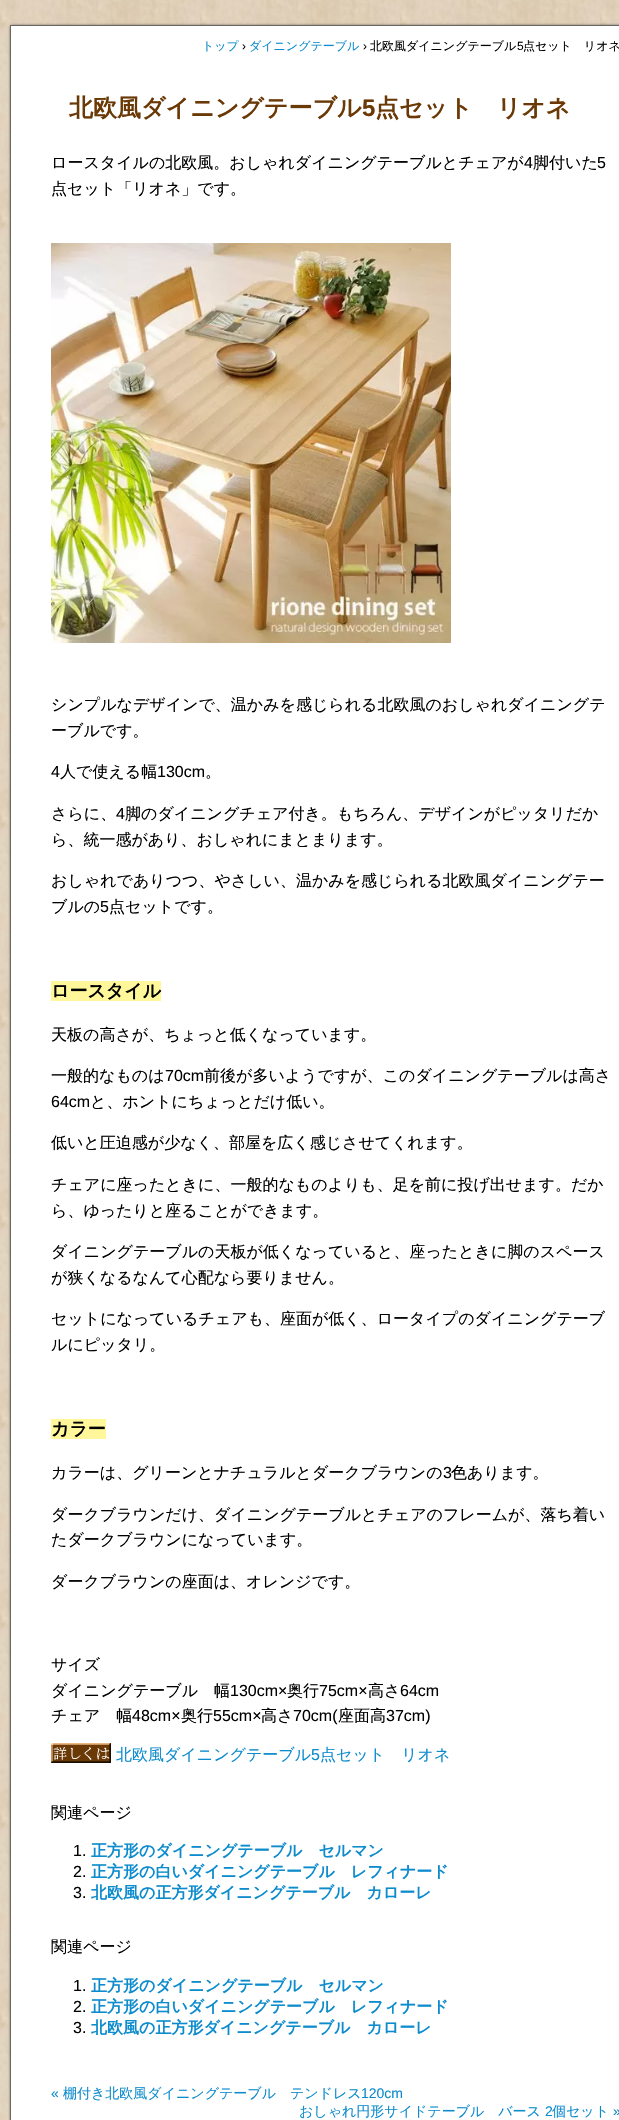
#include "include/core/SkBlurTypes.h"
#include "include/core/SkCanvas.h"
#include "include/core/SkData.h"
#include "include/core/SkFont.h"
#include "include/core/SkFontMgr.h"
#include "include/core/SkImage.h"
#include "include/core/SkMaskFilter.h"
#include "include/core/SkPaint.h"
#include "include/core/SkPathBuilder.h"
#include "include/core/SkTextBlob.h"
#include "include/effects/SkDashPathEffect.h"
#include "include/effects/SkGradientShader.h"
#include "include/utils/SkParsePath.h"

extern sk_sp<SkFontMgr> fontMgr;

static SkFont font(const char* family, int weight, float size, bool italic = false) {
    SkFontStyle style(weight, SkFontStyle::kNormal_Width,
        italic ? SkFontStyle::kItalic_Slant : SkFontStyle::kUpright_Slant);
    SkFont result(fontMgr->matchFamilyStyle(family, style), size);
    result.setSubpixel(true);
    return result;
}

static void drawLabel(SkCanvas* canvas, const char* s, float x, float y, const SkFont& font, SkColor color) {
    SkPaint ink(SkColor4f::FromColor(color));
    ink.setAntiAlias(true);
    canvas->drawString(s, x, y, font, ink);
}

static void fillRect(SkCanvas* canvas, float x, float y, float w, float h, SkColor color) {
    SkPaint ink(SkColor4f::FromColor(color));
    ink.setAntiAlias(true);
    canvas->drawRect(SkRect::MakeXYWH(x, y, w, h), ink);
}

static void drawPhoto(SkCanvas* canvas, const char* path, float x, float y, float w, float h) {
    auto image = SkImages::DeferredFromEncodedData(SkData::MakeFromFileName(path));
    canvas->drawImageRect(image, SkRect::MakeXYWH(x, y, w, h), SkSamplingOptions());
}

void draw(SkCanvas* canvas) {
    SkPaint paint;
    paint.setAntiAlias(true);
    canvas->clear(0xFFFFFFFF);
    drawPhoto(canvas, "assets/img1.png", 0, 0, 619, 2120);
    paint.setColor(0xFF000000);
    paint.setMaskFilter(SkMaskFilter::MakeBlur(kNormal_SkBlurStyle, 1.5f));
    canvas->drawRect(SkRect::MakeXYWH(11, 26, 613, 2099), paint);
    paint.setMaskFilter(nullptr);
    paint.setColor(0xFFFFFFFF);
    canvas->drawRect(SkRect::MakeXYWH(10.5f, 25.5f, 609, 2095), paint);
    paint.setStroke(true);
    paint.setStrokeWidth(1);
    paint.setColor(0xFF666666);
    canvas->drawRect(SkRect::MakeXYWH(10.5f, 25.5f, 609, 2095), paint);
    SkFont font1 = font("WenQuanYi Zen Hei", 500, 12);
    drawLabel(canvas, "トップ", 202, 50, font1, 0xFF0C8BCD);
    SkFont font2 = font("Liberation Sans", 400, 12);
    drawLabel(canvas, "›", 242, 50, font2, 0xFF000000);
    drawLabel(canvas, "ダイニングテーブル", 249, 50, font1, 0xFF0C8BCD);
    drawLabel(canvas, "›", 363, 50, font2, 0xFF000000);
    drawLabel(canvas, "北欧風ダイニングテーブル", 370, 50, font1, 0xFF000000);
    drawLabel(canvas, "5", 517, 50, font2, 0xFF000000);
    drawLabel(canvas, "点セット　リオネ", 523, 50, font1, 0xFF000000);
    SkFont font3 = font("WenQuanYi Zen Hei", 700, 24);
    drawLabel(canvas, "北欧風ダイニングテーブル", 69, 116, font3, 0xFF6A3906);
    SkFont font4 = font("Liberation Sans", 700, 24);
    drawLabel(canvas, "5", 362, 116, font4, 0xFF6A3906);
    drawLabel(canvas, "点セット　リオネ", 375, 116, font3, 0xFF6A3906);
    SkFont font5 = font("WenQuanYi Zen Hei", 500, 16);
    drawLabel(canvas, "ロースタイルの北欧風。おしゃれダイニングテーブルとチェアが", 51, 168, font5, 0xFF000000);
    SkFont font6 = font("Liberation Sans", 400, 16);
    drawLabel(canvas, "4", 524, 168, font6, 0xFF000000);
    drawLabel(canvas, "脚付いた", 533, 168, font5, 0xFF000000);
    drawLabel(canvas, "5", 597, 168, font6, 0xFF000000);
    drawLabel(canvas, "点セット「リオネ」です。", 51, 194, font5, 0xFF000000);
    drawPhoto(canvas, "assets/img2.png", 51, 243, 400, 400);
    drawLabel(canvas, "シンプルなデザインで、温かみを感じられる北欧風のおしゃれダイニングテ", 51, 710, font5, 0xFF000000);
    drawLabel(canvas, "ーブルです。", 51, 736, font5, 0xFF000000);
    drawLabel(canvas, "4", 51, 777, font6, 0xFF000000);
    drawLabel(canvas, "人で使える幅", 60, 777, font5, 0xFF000000);
    drawLabel(canvas, "130cm", 157, 777, font6, 0xFF000000);
    drawLabel(canvas, "。", 205, 777, font5, 0xFF000000);
    drawLabel(canvas, "さらに、", 51, 819, font5, 0xFF000000);
    drawLabel(canvas, "4", 116, 819, font6, 0xFF000000);
    drawLabel(canvas, "脚のダイニングチェア付き。もちろん、デザインがピッタリだか", 125, 819, font5, 0xFF000000);
    drawLabel(canvas, "ら、統一感があり、おしゃれにまとまります。", 51, 845, font5, 0xFF000000);
    drawLabel(canvas, "おしゃれでありつつ、やさしい、温かみを感じられる北欧風ダイニングテー", 51, 886, font5, 0xFF000000);
    drawLabel(canvas, "ブルの", 51, 912, font5, 0xFF000000);
    drawLabel(canvas, "5", 100, 912, font6, 0xFF000000);
    drawLabel(canvas, "点セットです。", 109, 912, font5, 0xFF000000);
    fillRect(canvas, 51, 981, 110, 20, 0xFFFFF799);
    SkFont font7 = font("WenQuanYi Zen Hei", 700, 18);
    drawLabel(canvas, "ロースタイル", 51, 997, font7, 0xFF000000);
    drawLabel(canvas, "天板の高さが、ちょっと低くなっています。", 51, 1040, font5, 0xFF000000);
    drawLabel(canvas, "一般的なものは", 51, 1081, font5, 0xFF000000);
    drawLabel(canvas, "70cm", 165, 1081, font6, 0xFF000000);
    drawLabel(canvas, "前後が多いようですが、このダイニングテーブルは高さ", 204, 1081, font5, 0xFF000000);
    drawLabel(canvas, "64cm", 51, 1107, font6, 0xFF000000);
    drawLabel(canvas, "と、ホントにちょっとだけ低い。", 90, 1107, font5, 0xFF000000);
    drawLabel(canvas, "低いと圧迫感が少なく、部屋を広く感じさせてくれます。", 51, 1148, font5, 0xFF000000);
    drawLabel(canvas, "チェアに座ったときに、一般的なものよりも、足を前に投げ出せます。だか", 51, 1190, font5, 0xFF000000);
    drawLabel(canvas, "ら、ゆったりと座ることができます。", 51, 1216, font5, 0xFF000000);
    drawLabel(canvas, "ダイニングテーブルの天板が低くなっていると、座ったときに脚のスペース", 51, 1257, font5, 0xFF000000);
    drawLabel(canvas, "が狭くなるなんて心配なら要りません。", 51, 1283, font5, 0xFF000000);
    drawLabel(canvas, "セットになっているチェアも、座面が低く、ロータイプのダイニングテーブ", 51, 1324, font5, 0xFF000000);
    drawLabel(canvas, "ルにピッタリ。", 51, 1350, font5, 0xFF000000);
    fillRect(canvas, 51, 1419, 55, 20, 0xFFFFF799);
    drawLabel(canvas, "カラー", 51, 1435, font7, 0xFF000000);
    drawLabel(canvas, "カラーは、グリーンとナチュラルとダークブラウンの", 51, 1478, font5, 0xFF000000);
    drawLabel(canvas, "3", 443, 1478, font6, 0xFF000000);
    drawLabel(canvas, "色あります。", 451, 1478, font5, 0xFF000000);
    drawLabel(canvas, "ダークブラウンだけ、ダイニングテーブルとチェアのフレームが、落ち着い", 51, 1520, font5, 0xFF000000);
    drawLabel(canvas, "たダークブラウンになっています。", 51, 1545, font5, 0xFF000000);
    drawLabel(canvas, "ダークブラウンの座面は、オレンジです。", 51, 1587, font5, 0xFF000000);
    drawLabel(canvas, "サイズ", 51, 1670, font5, 0xFF000000);
    drawLabel(canvas, "ダイニングテーブル　幅", 51, 1696, font5, 0xFF000000);
    drawLabel(canvas, "130cm×", 230, 1696, font6, 0xFF000000);
    drawLabel(canvas, "奥行", 287, 1696, font5, 0xFF000000);
    drawLabel(canvas, "75cm×", 319, 1696, font6, 0xFF000000);
    drawLabel(canvas, "高さ", 368, 1696, font5, 0xFF000000);
    drawLabel(canvas, "64cm", 400, 1696, font6, 0xFF000000);
    drawLabel(canvas, "チェア　幅", 51, 1721, font5, 0xFF000000);
    drawLabel(canvas, "48cm×", 132, 1721, font6, 0xFF000000);
    drawLabel(canvas, "奥行", 181, 1721, font5, 0xFF000000);
    drawLabel(canvas, "55cm×", 213, 1721, font6, 0xFF000000);
    drawLabel(canvas, "高さ", 261, 1721, font5, 0xFF000000);
    drawLabel(canvas, "70cm(", 293, 1721, font6, 0xFF000000);
    drawLabel(canvas, "座面高", 338, 1721, font5, 0xFF000000);
    drawLabel(canvas, "37cm)", 386, 1721, font6, 0xFF000000);
    drawPhoto(canvas, "assets/img3.png", 51, 1743, 60, 20);
    drawLabel(canvas, "北欧風ダイニングテーブル", 116, 1760, font5, 0xFF0C8BCD);
    drawLabel(canvas, "5", 311, 1760, font6, 0xFF0C8BCD);
    drawLabel(canvas, "点セット　リオネ", 320, 1760, font5, 0xFF0C8BCD);
    drawLabel(canvas, "関連ページ", 51, 1818, font5, 0xFF000000);
    drawLabel(canvas, "1.", 73, 1856, font6, 0xFF000000);
    SkFont font8 = font("WenQuanYi Zen Hei", 700, 16);
    drawLabel(canvas, "正方形のダイニングテーブル　セルマン", 91, 1856, font8, 0xFF0C8BCD);
    drawLabel(canvas, "2.", 73, 1877, font6, 0xFF000000);
    drawLabel(canvas, "正方形の白いダイニングテーブル　レフィナード", 91, 1877, font8, 0xFF0C8BCD);
    drawLabel(canvas, "3.", 73, 1898, font6, 0xFF000000);
    drawLabel(canvas, "北欧風の正方形ダイニングテーブル　カローレ", 91, 1898, font8, 0xFF0C8BCD);
    drawLabel(canvas, "関連ページ", 51, 1952, font5, 0xFF000000);
    drawLabel(canvas, "1.", 73, 1991, font6, 0xFF000000);
    drawLabel(canvas, "正方形のダイニングテーブル　セルマン", 91, 1991, font8, 0xFF0C8BCD);
    drawLabel(canvas, "2.", 73, 2012, font6, 0xFF000000);
    drawLabel(canvas, "正方形の白いダイニングテーブル　レフィナード", 91, 2012, font8, 0xFF0C8BCD);
    drawLabel(canvas, "3.", 73, 2033, font6, 0xFF000000);
    drawLabel(canvas, "北欧風の正方形ダイニングテーブル　カローレ", 91, 2033, font8, 0xFF0C8BCD);
    SkFont font9 = font("Liberation Sans", 400, 14);
    drawLabel(canvas, "«", 51, 2098, font9, 0xFF0C8BCD);
    SkFont font10 = font("WenQuanYi Zen Hei", 500, 14);
    drawLabel(canvas, "棚付き北欧風ダイニングテーブル　テンドレス", 63, 2098, font10, 0xFF0C8BCD);
    drawLabel(canvas, "120cm", 361, 2098, font9, 0xFF0C8BCD);
    drawLabel(canvas, "おしゃれ円形サイドテーブル　バース", 299, 2116, font10, 0xFF0C8BCD);
    drawLabel(canvas, "2", 545, 2116, font9, 0xFF0C8BCD);
    drawLabel(canvas, "個セット", 552, 2116, font10, 0xFF0C8BCD);
    drawLabel(canvas, "»", 613, 2116, font9, 0xFF0C8BCD);
}
